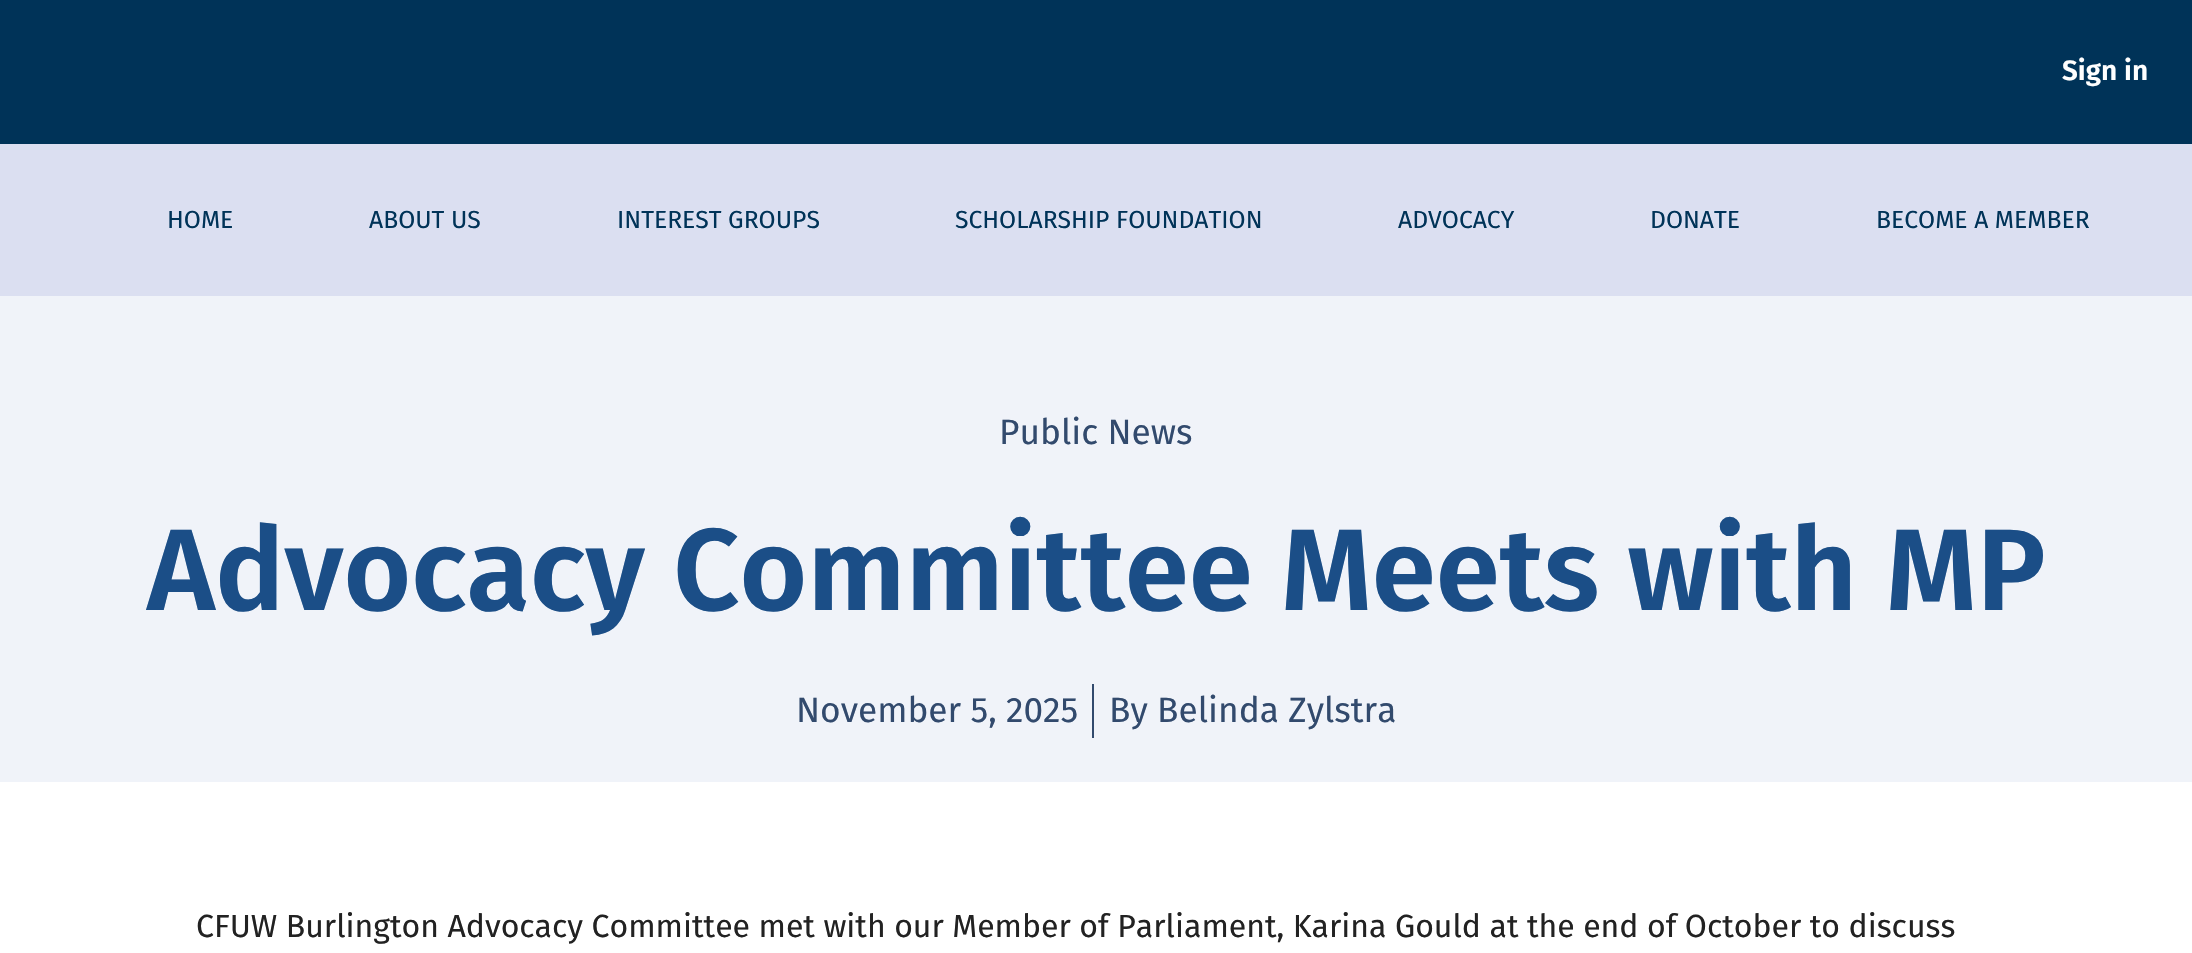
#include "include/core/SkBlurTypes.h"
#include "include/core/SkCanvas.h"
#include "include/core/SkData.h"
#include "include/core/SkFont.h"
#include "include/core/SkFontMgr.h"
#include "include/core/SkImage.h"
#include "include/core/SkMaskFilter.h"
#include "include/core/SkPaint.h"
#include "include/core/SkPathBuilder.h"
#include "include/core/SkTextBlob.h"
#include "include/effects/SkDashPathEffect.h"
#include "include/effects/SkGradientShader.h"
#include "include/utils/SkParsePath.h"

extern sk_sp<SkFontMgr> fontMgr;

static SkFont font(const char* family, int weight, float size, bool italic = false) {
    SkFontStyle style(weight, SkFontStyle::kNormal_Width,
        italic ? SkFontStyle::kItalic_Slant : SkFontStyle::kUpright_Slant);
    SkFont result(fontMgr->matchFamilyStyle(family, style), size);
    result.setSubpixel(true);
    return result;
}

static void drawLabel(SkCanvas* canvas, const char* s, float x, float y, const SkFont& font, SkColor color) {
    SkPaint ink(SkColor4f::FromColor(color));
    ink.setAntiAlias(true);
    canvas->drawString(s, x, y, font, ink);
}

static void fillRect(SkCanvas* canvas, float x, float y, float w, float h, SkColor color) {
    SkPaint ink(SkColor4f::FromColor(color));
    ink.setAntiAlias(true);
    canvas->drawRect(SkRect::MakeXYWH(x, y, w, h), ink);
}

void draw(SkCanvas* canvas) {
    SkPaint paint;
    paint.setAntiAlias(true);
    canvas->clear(0xFFF0F3F9);
    fillRect(canvas, 0, 0, 2192, 144, 0xFF003358);
    SkFont font1 = font("Fira Sans", 600, 28);
    drawLabel(canvas, "Sign in", 2062, 80, font1, 0xFFFFFFFF);
    fillRect(canvas, 0, 144, 2192, 152, 0xFFDBDFF1);
    SkFont font2 = font("Fira Sans", 400, 24.7f);
    drawLabel(canvas, "HOME", 167, 228, font2, 0xFF003358);
    drawLabel(canvas, "ABOUT US", 369, 228, font2, 0xFF003358);
    drawLabel(canvas, "INTEREST GROUPS", 617, 228, font2, 0xFF003358);
    drawLabel(canvas, "SCHOLARSHIP FOUNDATION", 955, 228, font2, 0xFF003358);
    drawLabel(canvas, "ADVOCACY", 1398, 228, font2, 0xFF003358);
    drawLabel(canvas, "DONATE", 1650, 228, font2, 0xFF003358);
    drawLabel(canvas, "BECOME A MEMBER", 1876, 228, font2, 0xFF003358);
    SkFont font3 = font("Fira Sans", 400, 35.25f);
    drawLabel(canvas, "Public News", 999, 444, font3, 0xFF324A6D);
    SkFont font4 = font("Fira Sans", 600, 116);
    drawLabel(canvas, "Advocacy Committee Meets with MP", 147, 610, font4, 0xFF1B4E87);
    drawLabel(canvas, "November 5, 2025", 796, 722, font3, 0xFF324A6D);
    fillRect(canvas, 1092, 684, 2, 54, 0xFF324A6D);
    drawLabel(canvas, "By Belinda Zylstra", 1109, 722, font3, 0xFF324A6D);
    fillRect(canvas, 0, 782, 2192, 171, 0xFFFFFFFF);
    SkFont font5 = font("Fira Sans", 400, 32);
    drawLabel(canvas, "CFUW Burlington Advocacy Committee met with our Member of Parliament, Karina Gould at the end of October to discuss", 196, 937, font5, 0xFF222222);
}
